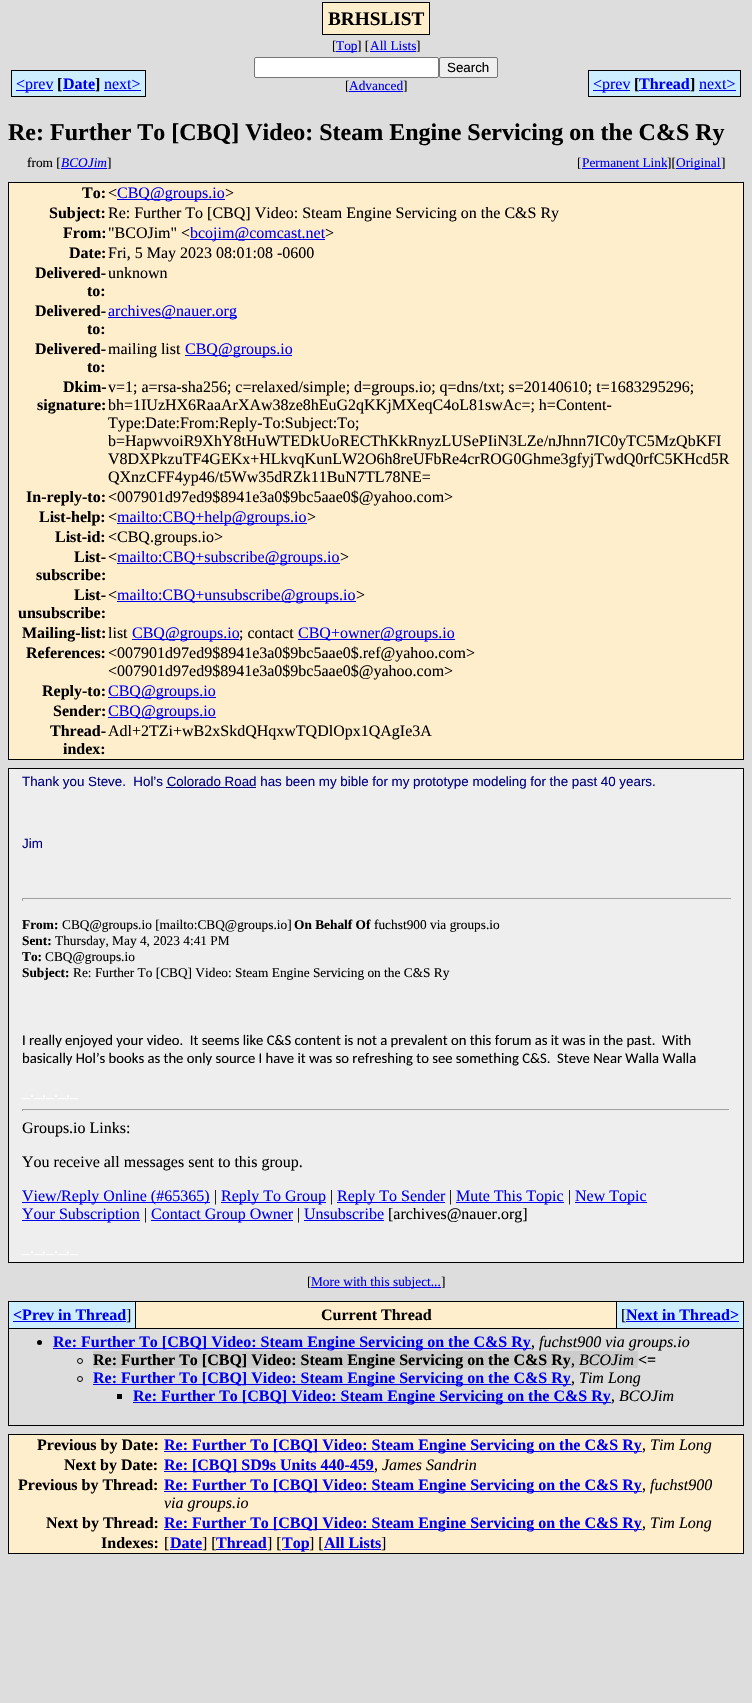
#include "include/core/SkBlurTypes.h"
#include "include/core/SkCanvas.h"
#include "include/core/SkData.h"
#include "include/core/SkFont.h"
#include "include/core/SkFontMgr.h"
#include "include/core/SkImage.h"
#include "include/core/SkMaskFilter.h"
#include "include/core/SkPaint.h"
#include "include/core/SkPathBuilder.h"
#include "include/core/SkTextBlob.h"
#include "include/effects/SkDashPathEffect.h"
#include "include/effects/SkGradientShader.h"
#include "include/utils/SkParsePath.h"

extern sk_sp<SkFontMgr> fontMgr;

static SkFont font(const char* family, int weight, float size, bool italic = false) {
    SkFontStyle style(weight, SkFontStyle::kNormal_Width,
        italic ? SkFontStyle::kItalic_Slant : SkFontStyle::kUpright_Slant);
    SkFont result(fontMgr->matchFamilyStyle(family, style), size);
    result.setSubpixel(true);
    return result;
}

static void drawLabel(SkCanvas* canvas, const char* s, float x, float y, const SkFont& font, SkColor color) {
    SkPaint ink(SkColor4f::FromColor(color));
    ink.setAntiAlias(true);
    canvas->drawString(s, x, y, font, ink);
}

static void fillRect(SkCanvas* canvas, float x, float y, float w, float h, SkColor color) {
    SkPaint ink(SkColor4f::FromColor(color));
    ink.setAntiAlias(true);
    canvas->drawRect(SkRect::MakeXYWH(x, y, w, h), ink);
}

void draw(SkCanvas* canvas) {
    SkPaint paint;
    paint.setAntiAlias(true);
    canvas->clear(0xFFDDDDDD);
    paint.setColor(0xFFFFEECC);
    canvas->drawRect(SkRect::MakeXYWH(322.5f, 2.5f, 107, 32), paint);
    paint.setStroke(true);
    paint.setStrokeWidth(1);
    paint.setColor(0xFF000000);
    canvas->drawRect(SkRect::MakeXYWH(322.5f, 2.5f, 107, 32), paint);
    SkFont font1 = font("Liberation Serif", 700, 19.25f);
    drawLabel(canvas, "BRHSLIST", 328, 25, font1, 0xFF000000);
    SkFont font2 = font("Liberation Serif", 400, 13.35f);
    drawLabel(canvas, "[", 332, 50, font2, 0xFF000000);
    fillRect(canvas, 336, 51, 21, 1, 0xFF0000EE);
    drawLabel(canvas, "Top", 336, 50, font2, 0xFF0000EE);
    drawLabel(canvas, "] [", 357, 50, font2, 0xFF000000);
    drawLabel(canvas, "All Lists", 370, 50, font2, 0xFF0000EE);
    drawLabel(canvas, "]", 416, 50, font2, 0xFF000000);
    fillRect(canvas, 370, 51, 46, 1, 0xFF0000EE);
    fillRect(canvas, 12, 71, 41, 25, 0xFFCCEEFF);
    fillRect(canvas, 16, 90, 37, 1, 0xFF0000EE);
    fillRect(canvas, 53, 70, 10, 27, 0xFFCCEEFF);
    SkFont font3 = font("Liberation Serif", 400, 16);
    drawLabel(canvas, "<prev", 16, 89, font3, 0xFF0000EE);
    fillRect(canvas, 11, 70, 42, 1, 0xFF000000);
    fillRect(canvas, 11, 96, 42, 1, 0xFF000000);
    fillRect(canvas, 11, 70, 1, 27, 0xFF000000);
    fillRect(canvas, 53, 96, 42, 1, 0xFF000000);
    SkFont font4 = font("Liberation Serif", 700, 16);
    drawLabel(canvas, "[", 57, 89, font4, 0xFF000000);
    fillRect(canvas, 63, 71, 32, 25, 0xFFCCEEFF);
    fillRect(canvas, 63, 90, 32, 1, 0xFF0000EE);
    drawLabel(canvas, "Date", 63, 89, font4, 0xFF0000EE);
    fillRect(canvas, 53, 70, 42, 1, 0xFF000000);
    fillRect(canvas, 95, 70, 9, 27, 0xFFCCEEFF);
    fillRect(canvas, 95, 70, 51, 1, 0xFF000000);
    drawLabel(canvas, "]", 95, 89, font4, 0xFF000000);
    fillRect(canvas, 95, 96, 9, 1, 0xFF000000);
    fillRect(canvas, 104, 71, 41, 25, 0xFFCCEEFF);
    drawLabel(canvas, "next>", 104, 89, font3, 0xFF0000EE);
    fillRect(canvas, 145, 70, 1, 27, 0xFF000000);
    fillRect(canvas, 104, 96, 42, 1, 0xFF000000);
    fillRect(canvas, 104, 90, 37, 1, 0xFF0000EE);
    paint.setStroke(false);
    paint.setColor(0xFFFFFFFF);
    canvas->drawRoundRect(SkRect::MakeXYWH(254.5f, 57.5f, 184, 20), 1.5f, 1.5f, paint);
    paint.setStroke(true);
    paint.setColor(0xFF767676);
    canvas->drawRoundRect(SkRect::MakeXYWH(254.5f, 57.5f, 184, 20), 1.5f, 1.5f, paint);
    paint.setStroke(false);
    paint.setColor(0xFFEFEFEF);
    canvas->drawRoundRect(SkRect::MakeXYWH(439.5f, 57.5f, 58, 20), 1.5f, 1.5f, paint);
    paint.setStroke(true);
    paint.setColor(0xFF767676);
    canvas->drawRoundRect(SkRect::MakeXYWH(439.5f, 57.5f, 58, 20), 1.5f, 1.5f, paint);
    SkFont font5 = font("Liberation Sans", 400, 13.35f);
    drawLabel(canvas, "Search", 447, 72, font5, 0xFF000000);
    drawLabel(canvas, "[", 345, 90, font2, 0xFF000000);
    fillRect(canvas, 349, 91, 54, 1, 0xFF0000EE);
    drawLabel(canvas, "Advanced", 349, 90, font2, 0xFF0000EE);
    drawLabel(canvas, "]", 403, 90, font2, 0xFF000000);
    fillRect(canvas, 589, 71, 41, 25, 0xFFCCEEFF);
    fillRect(canvas, 593, 90, 37, 1, 0xFF0000EE);
    fillRect(canvas, 630, 70, 9, 27, 0xFFCCEEFF);
    drawLabel(canvas, "<prev", 593, 89, font3, 0xFF0000EE);
    fillRect(canvas, 588, 70, 42, 1, 0xFF000000);
    fillRect(canvas, 588, 96, 42, 1, 0xFF000000);
    fillRect(canvas, 588, 70, 1, 27, 0xFF000000);
    fillRect(canvas, 630, 96, 60, 1, 0xFF000000);
    drawLabel(canvas, "[", 634, 89, font4, 0xFF000000);
    fillRect(canvas, 639, 71, 51, 25, 0xFFCCEEFF);
    fillRect(canvas, 639, 90, 51, 1, 0xFF0000EE);
    drawLabel(canvas, "Thread", 639, 89, font4, 0xFF0000EE);
    fillRect(canvas, 630, 70, 60, 1, 0xFF000000);
    fillRect(canvas, 690, 70, 9, 27, 0xFFCCEEFF);
    fillRect(canvas, 690, 70, 51, 1, 0xFF000000);
    drawLabel(canvas, "]", 690, 89, font4, 0xFF000000);
    fillRect(canvas, 690, 96, 9, 1, 0xFF000000);
    fillRect(canvas, 699, 71, 41, 25, 0xFFCCEEFF);
    drawLabel(canvas, "next>", 699, 89, font3, 0xFF0000EE);
    fillRect(canvas, 740, 70, 1, 27, 0xFF000000);
    fillRect(canvas, 699, 96, 42, 1, 0xFF000000);
    fillRect(canvas, 699, 90, 37, 1, 0xFF0000EE);
    SkFont font6 = font("Liberation Serif", 700, 24);
    drawLabel(canvas, "Re: Further To [CBQ] Video: Steam Engine Servicing on the C&S Ry", 8, 140, font6, 0xFF000000);
    drawLabel(canvas, "from [", 27, 167, font2, 0xFF000000);
    fillRect(canvas, 61, 168, 46, 1, 0xFF0000EE);
    SkFont font7 = font("Liberation Serif", 400, 13.35f, true);
    drawLabel(canvas, "BCOJim", 61, 167, font7, 0xFF0000EE);
    drawLabel(canvas, "]", 107, 167, font2, 0xFF000000);
    drawLabel(canvas, "[", 577, 167, font2, 0xFF000000);
    fillRect(canvas, 582, 168, 85, 1, 0xFF0000EE);
    drawLabel(canvas, "Permanent Link", 582, 167, font2, 0xFF0000EE);
    drawLabel(canvas, "][", 667, 167, font2, 0xFF000000);
    fillRect(canvas, 676, 168, 45, 1, 0xFF0000EE);
    drawLabel(canvas, "Original", 676, 167, font2, 0xFF0000EE);
    drawLabel(canvas, "]", 721, 167, font2, 0xFF000000);
    paint.setStroke(false);
    paint.setColor(0xFFFFEECC);
    canvas->drawRect(SkRect::MakeXYWH(8.5f, 182.5f, 735, 577), paint);
    paint.setStroke(true);
    paint.setColor(0xFF000000);
    canvas->drawRect(SkRect::MakeXYWH(8.5f, 182.5f, 735, 577), paint);
    drawLabel(canvas, "To:", 82, 198, font4, 0xFF000000);
    drawLabel(canvas, "<", 108, 198, font3, 0xFF000000);
    fillRect(canvas, 117, 199, 108, 1, 0xFF0000EE);
    drawLabel(canvas, "CBQ@groups.io", 117, 198, font3, 0xFF0000EE);
    drawLabel(canvas, ">", 225, 198, font3, 0xFF000000);
    drawLabel(canvas, "Subject:", 49, 218, font4, 0xFF000000);
    drawLabel(canvas, "Re: Further To [CBQ] Video: Steam Engine Servicing on the C&S Ry", 108, 218, font3, 0xFF000000);
    drawLabel(canvas, "From:", 63, 238, font4, 0xFF000000);
    drawLabel(canvas, "\"BCOJim\" <", 108, 238, font3, 0xFF000000);
    fillRect(canvas, 190, 239, 135, 1, 0xFF0000EE);
    drawLabel(canvas, "bcojim@comcast.net", 190, 238, font3, 0xFF0000EE);
    drawLabel(canvas, ">", 325, 238, font3, 0xFF000000);
    drawLabel(canvas, "Date:", 69, 258, font4, 0xFF000000);
    drawLabel(canvas, "Fri, 5 May 2023 08:01:08 -0600", 108, 258, font3, 0xFF000000);
    drawLabel(canvas, "Delivered-", 35, 278, font4, 0xFF000000);
    drawLabel(canvas, "to:", 87, 296, font4, 0xFF000000);
    drawLabel(canvas, "unknown", 108, 278, font3, 0xFF000000);
    drawLabel(canvas, "Delivered-", 35, 316, font4, 0xFF000000);
    drawLabel(canvas, "to:", 87, 334, font4, 0xFF000000);
    fillRect(canvas, 108, 317, 129, 1, 0xFF0000EE);
    drawLabel(canvas, "archives@nauer.org", 108, 316, font3, 0xFF0000EE);
    drawLabel(canvas, "Delivered-", 35, 354, font4, 0xFF000000);
    drawLabel(canvas, "to:", 87, 372, font4, 0xFF000000);
    drawLabel(canvas, "mailing list", 108, 354, font3, 0xFF000000);
    fillRect(canvas, 185, 355, 107, 1, 0xFF0000EE);
    drawLabel(canvas, "CBQ@groups.io", 185, 354, font3, 0xFF0000EE);
    drawLabel(canvas, "Dkim-", 63, 392, font4, 0xFF000000);
    drawLabel(canvas, "signature:", 37, 410, font4, 0xFF000000);
    drawLabel(canvas, "v=1; a=rsa-sha256; c=relaxed/simple; d=groups.io; q=dns/txt; s=20140610; t=1683295296;", 108, 392, font3, 0xFF000000);
    drawLabel(canvas, "bh=1IUzHX6RaaArXAw38ze8hEuG2qKKjMXeqC4oL81swAc=; h=Content-", 108, 410, font3, 0xFF000000);
    drawLabel(canvas, "Type:Date:From:Reply-To:Subject:To;", 108, 428, font3, 0xFF000000);
    drawLabel(canvas, "b=HapwvoiR9XhY8tHuWTEDkUoRECThKkRnyzLUSePIiN3LZe/nJhnn7IC0yTC5MzQbKFI", 108, 446, font3, 0xFF000000);
    drawLabel(canvas, "V8DXPkzuTF4GEKx+HLkvqKunLW2O6h8reUFbRe4crROG0Ghme3gfyjTwdQ0rfC5KHcd5R", 108, 464, font3, 0xFF000000);
    drawLabel(canvas, "QXnzCFF4yp46/t5Ww35dRZk11BuN7TL78NE=", 108, 482, font3, 0xFF000000);
    drawLabel(canvas, "In-reply-to:", 26, 502, font4, 0xFF000000);
    drawLabel(canvas, "<007901d97ed9$8941e3a0$9bc5aae0$@yahoo.com>", 108, 502, font3, 0xFF000000);
    drawLabel(canvas, "List-help:", 39, 522, font4, 0xFF000000);
    drawLabel(canvas, "<", 108, 522, font3, 0xFF000000);
    fillRect(canvas, 117, 523, 190, 1, 0xFF0000EE);
    drawLabel(canvas, "mailto:CBQ+help@groups.io", 117, 522, font3, 0xFF0000EE);
    drawLabel(canvas, ">", 307, 522, font3, 0xFF000000);
    drawLabel(canvas, "List-id:", 55, 542, font4, 0xFF000000);
    drawLabel(canvas, "<CBQ.groups.io>", 108, 542, font3, 0xFF000000);
    drawLabel(canvas, "List-", 74, 562, font4, 0xFF000000);
    drawLabel(canvas, "subscribe:", 36, 580, font4, 0xFF000000);
    drawLabel(canvas, "<", 108, 562, font3, 0xFF000000);
    fillRect(canvas, 117, 563, 223, 1, 0xFF0000EE);
    drawLabel(canvas, "mailto:CBQ+subscribe@groups.io", 117, 562, font3, 0xFF0000EE);
    drawLabel(canvas, ">", 340, 562, font3, 0xFF000000);
    drawLabel(canvas, "List-", 74, 600, font4, 0xFF000000);
    drawLabel(canvas, "unsubscribe:", 18, 618, font4, 0xFF000000);
    drawLabel(canvas, "<", 108, 600, font3, 0xFF000000);
    fillRect(canvas, 117, 601, 239, 1, 0xFF0000EE);
    drawLabel(canvas, "mailto:CBQ+unsubscribe@groups.io", 117, 600, font3, 0xFF0000EE);
    drawLabel(canvas, ">", 356, 600, font3, 0xFF000000);
    drawLabel(canvas, "Mailing-list:", 22, 638, font4, 0xFF000000);
    drawLabel(canvas, "list", 108, 638, font3, 0xFF000000);
    fillRect(canvas, 132, 639, 107, 1, 0xFF0000EE);
    drawLabel(canvas, "CBQ@groups.io", 132, 638, font3, 0xFF0000EE);
    drawLabel(canvas, "; contact", 239, 638, font3, 0xFF000000);
    fillRect(canvas, 298, 639, 157, 1, 0xFF0000EE);
    drawLabel(canvas, "CBQ+owner@groups.io", 298, 638, font3, 0xFF0000EE);
    drawLabel(canvas, "References:", 26, 658, font4, 0xFF000000);
    drawLabel(canvas, "<007901d97ed9$8941e3a0$9bc5aae0$.ref@yahoo.com>", 108, 658, font3, 0xFF000000);
    drawLabel(canvas, "<007901d97ed9$8941e3a0$9bc5aae0$@yahoo.com>", 108, 676, font3, 0xFF000000);
    drawLabel(canvas, "Reply-to:", 42, 696, font4, 0xFF000000);
    fillRect(canvas, 108, 697, 108, 1, 0xFF0000EE);
    drawLabel(canvas, "CBQ@groups.io", 108, 696, font3, 0xFF0000EE);
    drawLabel(canvas, "Sender:", 53, 716, font4, 0xFF000000);
    fillRect(canvas, 108, 717, 108, 1, 0xFF0000EE);
    drawLabel(canvas, "CBQ@groups.io", 108, 716, font3, 0xFF0000EE);
    drawLabel(canvas, "Thread-", 50, 736, font4, 0xFF000000);
    drawLabel(canvas, "index:", 63, 754, font4, 0xFF000000);
    drawLabel(canvas, "Adl+2TZi+wB2xSkdQHqxwTQDlOpx1QAgIe3A", 108, 736, font3, 0xFF000000);
    paint.setStroke(false);
    paint.setColor(0xFFEEEEEE);
    canvas->drawRect(SkRect::MakeXYWH(8.5f, 768.5f, 735, 494), paint);
    paint.setStroke(true);
    paint.setColor(0xFF000000);
    canvas->drawRect(SkRect::MakeXYWH(8.5f, 768.5f, 735, 494), paint);
    drawLabel(canvas, "Thank you Steve.  Hol’s Colorado Road has been my bible for my prototype modeling for the past 40 years.", 22, 786, font5, 0xFF000080);
    fillRect(canvas, 166, 787, 90, 1, 0xFF000080);
    drawLabel(canvas, "Jim", 22, 848, font5, 0xFF000080);
    fillRect(canvas, 22, 898, 710, 1, 0xFF9F9F9F);
    fillRect(canvas, 731, 898, 1, 3, 0xFFEEEEEE);
    fillRect(canvas, 22, 898, 1, 3, 0xFF9F9F9F);
    SkFont font8 = font("Liberation Serif", 700, 13.35f);
    drawLabel(canvas, "From:", 22, 929, font8, 0xFF000000);
    drawLabel(canvas, "CBQ@groups.io [mailto:CBQ@groups.io]", 62, 929, font2, 0xFF000000);
    drawLabel(canvas, "On Behalf Of", 294, 929, font8, 0xFF000000);
    drawLabel(canvas, "fuchst900 via groups.io", 374, 929, font2, 0xFF000000);
    drawLabel(canvas, "Sent:", 22, 945, font8, 0xFF000000);
    drawLabel(canvas, "Thursday, May 4, 2023 4:41 PM", 55, 945, font2, 0xFF000000);
    drawLabel(canvas, "To:", 22, 961, font8, 0xFF000000);
    drawLabel(canvas, "CBQ@groups.io", 45, 961, font2, 0xFF000000);
    drawLabel(canvas, "Subject:", 22, 977, font8, 0xFF000000);
    drawLabel(canvas, "Re: Further To [CBQ] Video: Steam Engine Servicing on the C&S Ry", 73, 977, font2, 0xFF000000);
    SkFont font9 = font("Carlito", 400, 14.65f);
    drawLabel(canvas, "I really enjoyed your video.  It seems like C&S content is not a prevalent on this forum as it was in the past.  With", 22, 1045, font9, 0xFF000000);
    drawLabel(canvas, "basically Hol’s books as the only source I have it was so refreshing to see something C&S.  Steve Near Walla Walla", 22, 1063, font9, 0xFF000000);
    drawLabel(canvas, "_._,_._,_", 22, 1097, font3, 0xFFFFFFFF);
    fillRect(canvas, 22, 1109, 708, 1, 0xFF9F9F9F);
    fillRect(canvas, 729, 1109, 1, 2, 0xFFEEEEEE);
    fillRect(canvas, 22, 1109, 1, 2, 0xFF9F9F9F);
    drawLabel(canvas, "Groups.io Links:", 22, 1133, font3, 0xFF000000);
    drawLabel(canvas, "You receive all messages sent to this group.", 22, 1167, font3, 0xFF000000);
    fillRect(canvas, 22, 1202, 188, 1, 0xFF0000EE);
    drawLabel(canvas, "View/Reply Online (#65365)", 22, 1201, font3, 0xFF0000EE);
    drawLabel(canvas, "|", 214, 1201, font3, 0xFF000000);
    fillRect(canvas, 221, 1202, 105, 1, 0xFF0000EE);
    drawLabel(canvas, "Reply To Group", 221, 1201, font3, 0xFF0000EE);
    drawLabel(canvas, "|", 330, 1201, font3, 0xFF000000);
    fillRect(canvas, 337, 1202, 108, 1, 0xFF0000EE);
    drawLabel(canvas, "Reply To Sender", 337, 1201, font3, 0xFF0000EE);
    drawLabel(canvas, "|", 449, 1201, font3, 0xFF000000);
    fillRect(canvas, 456, 1202, 108, 1, 0xFF0000EE);
    drawLabel(canvas, "Mute This Topic", 456, 1201, font3, 0xFF0000EE);
    drawLabel(canvas, "|", 568, 1201, font3, 0xFF000000);
    fillRect(canvas, 575, 1202, 72, 1, 0xFF0000EE);
    drawLabel(canvas, "New Topic", 575, 1201, font3, 0xFF0000EE);
    fillRect(canvas, 22, 1220, 118, 1, 0xFF0000EE);
    drawLabel(canvas, "Your Subscription", 22, 1219, font3, 0xFF0000EE);
    drawLabel(canvas, "|", 144, 1219, font3, 0xFF000000);
    fillRect(canvas, 151, 1220, 142, 1, 0xFF0000EE);
    drawLabel(canvas, "Contact Group Owner", 151, 1219, font3, 0xFF0000EE);
    drawLabel(canvas, "|", 297, 1219, font3, 0xFF000000);
    drawLabel(canvas, "Unsubscribe", 304, 1219, font3, 0xFF0000EE);
    fillRect(canvas, 304, 1220, 80, 1, 0xFF0000EE);
    drawLabel(canvas, "[archives@nauer.org]", 388, 1219, font3, 0xFF000000);
    drawLabel(canvas, "_._,_._,_", 22, 1253, font3, 0xFFFFFFFF);
    drawLabel(canvas, "[", 307, 1286, font2, 0xFF000000);
    fillRect(canvas, 311, 1287, 130, 1, 0xFF0000EE);
    drawLabel(canvas, "More with this subject...", 311, 1286, font2, 0xFF0000EE);
    drawLabel(canvas, "]", 441, 1286, font2, 0xFF000000);
    fillRect(canvas, 8, 1301, 736, 125, 0xFF000000);
    fillRect(canvas, 9, 1302, 126, 26, 0xFFCCEEFF);
    drawLabel(canvas, "<Prev in Thread", 13, 1320, font4, 0xFF0000EE);
    fillRect(canvas, 13, 1321, 113, 1, 0xFF0000EE);
    drawLabel(canvas, "]", 126, 1320, font3, 0xFF000000);
    fillRect(canvas, 136, 1302, 480, 26, 0xFFFFEECC);
    drawLabel(canvas, "Current Thread", 321, 1320, font4, 0xFF000000);
    fillRect(canvas, 617, 1302, 126, 26, 0xFFCCEEFF);
    drawLabel(canvas, "[", 621, 1320, font3, 0xFF000000);
    drawLabel(canvas, "Next in Thread>", 626, 1320, font4, 0xFF0000EE);
    fillRect(canvas, 626, 1321, 113, 1, 0xFF0000EE);
    fillRect(canvas, 9, 1329, 734, 96, 0xFFDDDDDD);
    paint.setStroke(false);
    canvas->drawCircle(39.5f, 1342.5f, 2.5f, paint);
    fillRect(canvas, 53, 1348, 478, 1, 0xFF0000EE);
    drawLabel(canvas, "Re: Further To [CBQ] Video: Steam Engine Servicing on the C&S Ry", 53, 1347, font4, 0xFF0000EE);
    SkFont font10 = font("Liberation Serif", 400, 16, true);
    drawLabel(canvas, "fuchst900 via groups.io", 539, 1347, font10, 0xFF000000);
    drawLabel(canvas, ",", 531, 1347, font3, 0xFF000000);
    paint.setStroke(true);
    canvas->drawCircle(80, 1361, 2.5f, paint);
    fillRect(canvas, 93, 1351, 545, 17, 0xFFCCCCCC);
    drawLabel(canvas, "Re: Further To [CBQ] Video: Steam Engine Servicing on the C&S Ry", 93, 1365, font4, 0xFF000000);
    drawLabel(canvas, "BCOJim", 579, 1365, font10, 0xFF000000);
    drawLabel(canvas, "<=", 638, 1365, font4, 0xFF000000);
    drawLabel(canvas, ",", 571, 1365, font3, 0xFF000000);
    canvas->drawCircle(80, 1379, 2.5f, paint);
    fillRect(canvas, 93, 1384, 478, 1, 0xFF0000EE);
    drawLabel(canvas, "Re: Further To [CBQ] Video: Steam Engine Servicing on the C&S Ry", 93, 1383, font4, 0xFF0000EE);
    drawLabel(canvas, "Tim Long", 579, 1383, font10, 0xFF000000);
    drawLabel(canvas, ",", 571, 1383, font3, 0xFF000000);
    fillRect(canvas, 117, 1394, 5, 5, 0xFF000000);
    fillRect(canvas, 133, 1402, 478, 1, 0xFF0000EE);
    drawLabel(canvas, "Re: Further To [CBQ] Video: Steam Engine Servicing on the C&S Ry", 133, 1401, font4, 0xFF0000EE);
    drawLabel(canvas, "BCOJim", 619, 1401, font10, 0xFF000000);
    drawLabel(canvas, ",", 611, 1401, font3, 0xFF000000);
    paint.setStroke(false);
    paint.setColor(0xFFFFEECC);
    canvas->drawRect(SkRect::MakeXYWH(8.5f, 1434.5f, 735, 119), paint);
    paint.setStroke(true);
    paint.setColor(0xFF000000);
    canvas->drawRect(SkRect::MakeXYWH(8.5f, 1434.5f, 735, 119), paint);
    drawLabel(canvas, "Previous by Date:", 37, 1450, font4, 0xFF000000);
    fillRect(canvas, 164, 1451, 478, 1, 0xFF0000EE);
    drawLabel(canvas, "Re: Further To [CBQ] Video: Steam Engine Servicing on the C&S Ry", 164, 1450, font4, 0xFF0000EE);
    drawLabel(canvas, ",", 642, 1450, font3, 0xFF000000);
    drawLabel(canvas, "Tim Long", 650, 1450, font10, 0xFF000000);
    drawLabel(canvas, "Next by Date:", 64, 1470, font4, 0xFF000000);
    fillRect(canvas, 164, 1471, 210, 1, 0xFF0000EE);
    drawLabel(canvas, "Re: [CBQ] SD9s Units 440-459", 164, 1470, font4, 0xFF0000EE);
    drawLabel(canvas, ",", 374, 1470, font3, 0xFF000000);
    drawLabel(canvas, "James Sandrin", 382, 1470, font10, 0xFF000000);
    drawLabel(canvas, "Previous by Thread:", 18, 1490, font4, 0xFF000000);
    fillRect(canvas, 164, 1491, 478, 1, 0xFF0000EE);
    drawLabel(canvas, "Re: Further To [CBQ] Video: Steam Engine Servicing on the C&S Ry", 164, 1490, font4, 0xFF0000EE);
    drawLabel(canvas, ",", 642, 1490, font3, 0xFF000000);
    drawLabel(canvas, "fuchst900", 650, 1490, font10, 0xFF000000);
    drawLabel(canvas, "via groups.io", 164, 1508, font10, 0xFF000000);
    drawLabel(canvas, "Next by Thread:", 46, 1528, font4, 0xFF000000);
    fillRect(canvas, 164, 1529, 478, 1, 0xFF0000EE);
    drawLabel(canvas, "Re: Further To [CBQ] Video: Steam Engine Servicing on the C&S Ry", 164, 1528, font4, 0xFF0000EE);
    drawLabel(canvas, ",", 642, 1528, font3, 0xFF000000);
    drawLabel(canvas, "Tim Long", 650, 1528, font10, 0xFF000000);
    drawLabel(canvas, "Indexes:", 101, 1548, font4, 0xFF000000);
    drawLabel(canvas, "[", 164, 1548, font3, 0xFF000000);
    drawLabel(canvas, "Date", 170, 1548, font4, 0xFF0000EE);
    fillRect(canvas, 170, 1549, 32, 1, 0xFF0000EE);
    drawLabel(canvas, "] [", 202, 1548, font3, 0xFF000000);
    drawLabel(canvas, "Thread", 216, 1548, font4, 0xFF0000EE);
    fillRect(canvas, 216, 1549, 51, 1, 0xFF0000EE);
    drawLabel(canvas, "] [", 267, 1548, font3, 0xFF000000);
    fillRect(canvas, 282, 1549, 27, 1, 0xFF0000EE);
    drawLabel(canvas, "Top", 282, 1548, font4, 0xFF0000EE);
    drawLabel(canvas, "] [", 309, 1548, font3, 0xFF000000);
    drawLabel(canvas, "All Lists", 324, 1548, font4, 0xFF0000EE);
    fillRect(canvas, 324, 1549, 57, 1, 0xFF0000EE);
    drawLabel(canvas, "]", 381, 1548, font3, 0xFF000000);
}
